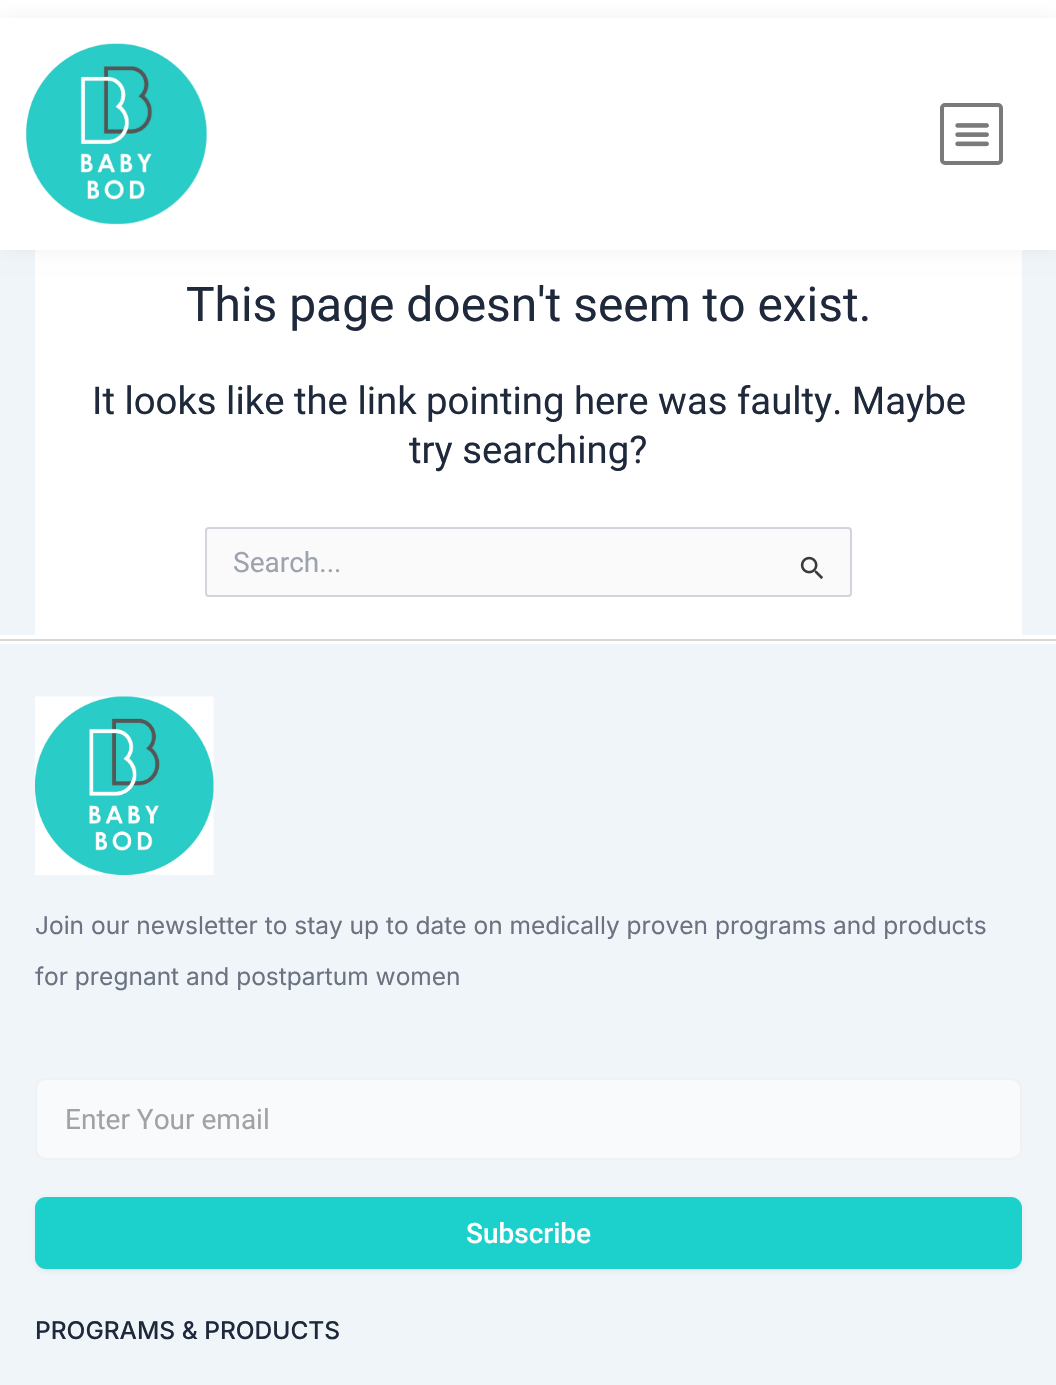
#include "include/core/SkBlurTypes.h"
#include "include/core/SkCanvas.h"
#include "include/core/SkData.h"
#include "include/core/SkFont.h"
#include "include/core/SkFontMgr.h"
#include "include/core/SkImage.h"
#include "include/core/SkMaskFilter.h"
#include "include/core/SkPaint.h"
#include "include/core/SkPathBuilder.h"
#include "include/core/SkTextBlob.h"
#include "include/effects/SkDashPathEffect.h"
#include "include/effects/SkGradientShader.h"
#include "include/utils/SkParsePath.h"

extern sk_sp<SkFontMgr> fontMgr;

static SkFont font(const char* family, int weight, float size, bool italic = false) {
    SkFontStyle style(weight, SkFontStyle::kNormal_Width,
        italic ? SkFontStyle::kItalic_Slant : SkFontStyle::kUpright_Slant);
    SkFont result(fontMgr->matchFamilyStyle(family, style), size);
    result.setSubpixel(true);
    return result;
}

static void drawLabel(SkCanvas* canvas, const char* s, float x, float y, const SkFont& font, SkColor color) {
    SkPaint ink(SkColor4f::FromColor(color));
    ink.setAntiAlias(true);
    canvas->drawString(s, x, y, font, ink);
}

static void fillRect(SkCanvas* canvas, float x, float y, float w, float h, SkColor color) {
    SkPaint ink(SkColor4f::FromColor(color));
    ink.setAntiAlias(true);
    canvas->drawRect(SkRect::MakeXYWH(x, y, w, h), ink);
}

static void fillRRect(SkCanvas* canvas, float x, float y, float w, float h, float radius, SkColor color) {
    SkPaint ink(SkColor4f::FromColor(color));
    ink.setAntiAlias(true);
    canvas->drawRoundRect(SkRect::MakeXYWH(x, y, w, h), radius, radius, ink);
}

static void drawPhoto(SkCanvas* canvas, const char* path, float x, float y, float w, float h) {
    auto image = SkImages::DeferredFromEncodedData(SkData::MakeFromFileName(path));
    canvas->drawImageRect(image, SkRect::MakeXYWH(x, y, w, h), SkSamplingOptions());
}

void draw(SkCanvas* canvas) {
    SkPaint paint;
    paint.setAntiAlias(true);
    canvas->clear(0xFFF0F5FA);
    fillRect(canvas, 0, 0, 1056, 18, 0xFFFFFFFF);
    fillRect(canvas, 35, 250, 987, 385, 0xFFFFFFFF);
    paint.setColor(0x0D000000);
    paint.setMaskFilter(SkMaskFilter::MakeBlur(kNormal_SkBlurStyle, 9));
    canvas->drawRect(SkRect::MakeXYWH(0, 18, 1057, 232), paint);
    paint.setMaskFilter(nullptr);
    fillRect(canvas, 0, 18, 1056, 232, 0xFFFFFFFF);
    drawPhoto(canvas, "assets/img1.png", 26, 43, 181, 182);
    paint.setStroke(true);
    paint.setStrokeWidth(4);
    paint.setColor(0xFF7A7A7A);
    canvas->drawRoundRect(SkRect::MakeXYWH(942, 105, 59, 58), 3, 3, paint);
    drawPhoto(canvas, "assets/img2.png", 955, 123, 34, 24);
    SkFont font1 = font("Roboto", 400, 47.9f);
    drawLabel(canvas, "This page doesn't seem to exist.", 186, 321, font1, 0xFF1E293B);
    SkFont font2 = font("Roboto", 400, 38.3f);
    drawLabel(canvas, "It looks like the link pointing here was faulty. Maybe", 92, 414, font2, 0xFF1E293B);
    drawLabel(canvas, "try searching?", 409, 463, font2, 0xFF1E293B);
    paint.setStroke(false);
    paint.setColor(0xFFFAFAFA);
    canvas->drawRoundRect(SkRect::MakeXYWH(206, 528, 645, 68), 3, 3, paint);
    paint.setStroke(true);
    paint.setStrokeWidth(2);
    paint.setColor(0xFFD1D5DB);
    canvas->drawRoundRect(SkRect::MakeXYWH(206, 528, 645, 68), 3, 3, paint);
    SkFont font3 = font("Roboto", 400, 28);
    drawLabel(canvas, "Search...", 233, 572, font3, 0xFF9CA3AF);
    drawPhoto(canvas, "assets/img3.png", 800, 556, 23, 24);
    fillRect(canvas, 0, 635, 1056, 9, 0xFFFFFFFF);
    fillRect(canvas, 0, 639, 1056, 2, 0xFFD7D7D7);
    drawPhoto(canvas, "assets/img4.png", 35, 696, 179, 179);
    SkFont font4 = font("Inter", 400, 24.5f);
    drawLabel(canvas, "Join our newsletter to stay up to date on medically proven programs and products", 35, 934, font4, 0xFF6B7280);
    drawLabel(canvas, "for pregnant and postpartum women", 35, 985, font4, 0xFF6B7280);
    fillRRect(canvas, 35, 1078, 987, 82, 11, 0xFFF9FAFB);
    paint.setColor(0x127A7A7A);
    canvas->drawRoundRect(SkRect::MakeXYWH(36, 1079, 985, 80), 10, 10, paint);
    drawLabel(canvas, "Enter Your email", 65, 1129, font3, 0xFFA1A2A2);
    paint.setStroke(false);
    paint.setColor(0x0D000000);
    paint.setMaskFilter(SkMaskFilter::MakeBlur(kNormal_SkBlurStyle, 2));
    canvas->drawRoundRect(SkRect::MakeXYWH(35, 1199, 987, 72), 11, 11, paint);
    paint.setMaskFilter(nullptr);
    fillRRect(canvas, 35, 1197, 987, 72, 11, 0xFF1CD1CC);
    SkFont font5 = font("Roboto", 500, 28);
    drawLabel(canvas, "Subscribe", 466, 1243, font5, 0xFFFFFFFF);
    SkFont font6 = font("Inter", 500, 24.5f);
    drawLabel(canvas, "PROGRAMS & PRODUCTS", 35, 1339, font6, 0xFF1E293B);
}
